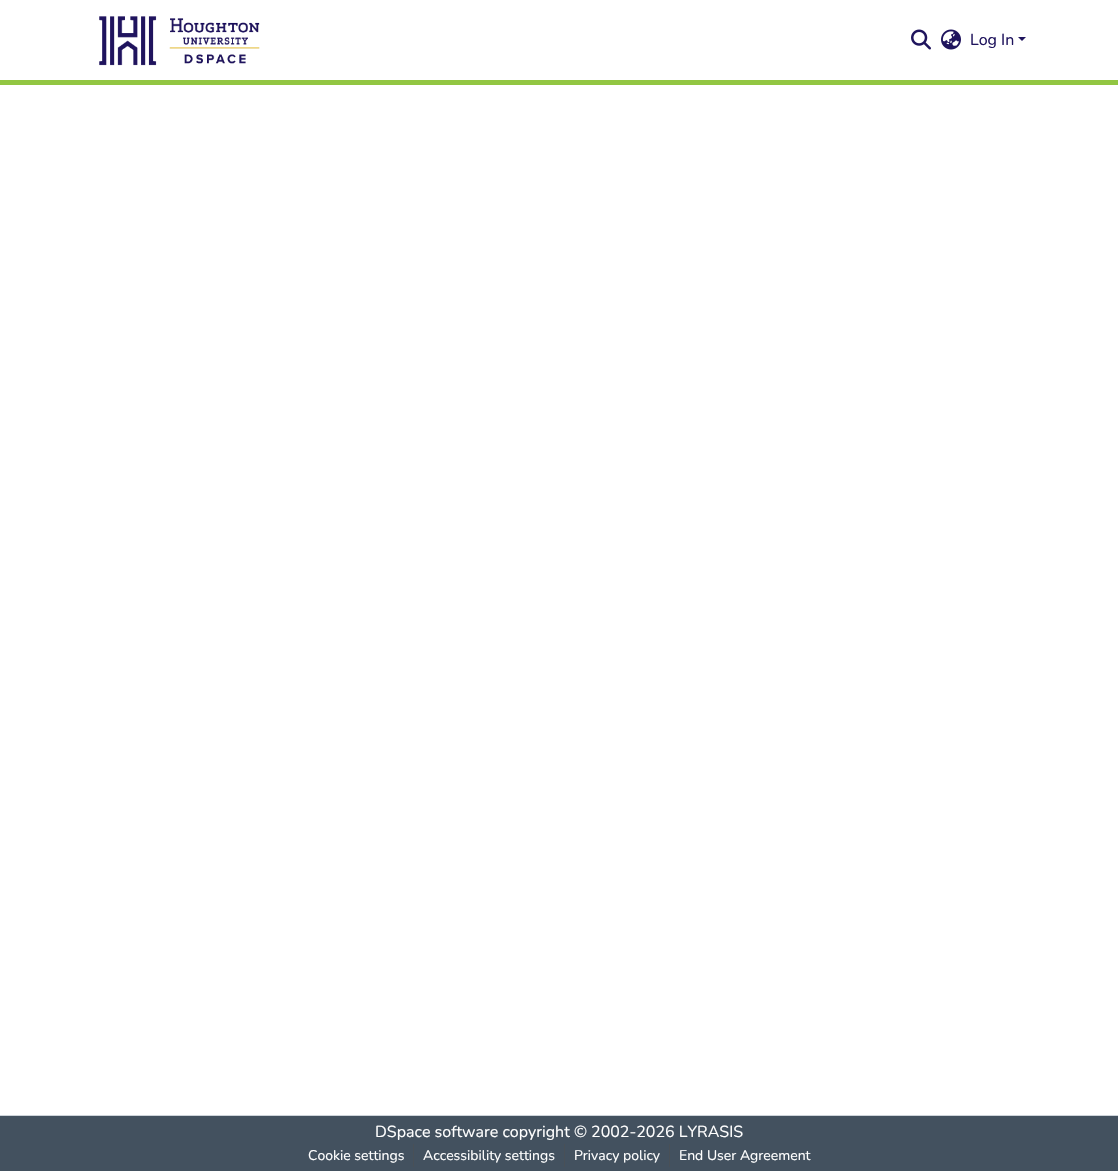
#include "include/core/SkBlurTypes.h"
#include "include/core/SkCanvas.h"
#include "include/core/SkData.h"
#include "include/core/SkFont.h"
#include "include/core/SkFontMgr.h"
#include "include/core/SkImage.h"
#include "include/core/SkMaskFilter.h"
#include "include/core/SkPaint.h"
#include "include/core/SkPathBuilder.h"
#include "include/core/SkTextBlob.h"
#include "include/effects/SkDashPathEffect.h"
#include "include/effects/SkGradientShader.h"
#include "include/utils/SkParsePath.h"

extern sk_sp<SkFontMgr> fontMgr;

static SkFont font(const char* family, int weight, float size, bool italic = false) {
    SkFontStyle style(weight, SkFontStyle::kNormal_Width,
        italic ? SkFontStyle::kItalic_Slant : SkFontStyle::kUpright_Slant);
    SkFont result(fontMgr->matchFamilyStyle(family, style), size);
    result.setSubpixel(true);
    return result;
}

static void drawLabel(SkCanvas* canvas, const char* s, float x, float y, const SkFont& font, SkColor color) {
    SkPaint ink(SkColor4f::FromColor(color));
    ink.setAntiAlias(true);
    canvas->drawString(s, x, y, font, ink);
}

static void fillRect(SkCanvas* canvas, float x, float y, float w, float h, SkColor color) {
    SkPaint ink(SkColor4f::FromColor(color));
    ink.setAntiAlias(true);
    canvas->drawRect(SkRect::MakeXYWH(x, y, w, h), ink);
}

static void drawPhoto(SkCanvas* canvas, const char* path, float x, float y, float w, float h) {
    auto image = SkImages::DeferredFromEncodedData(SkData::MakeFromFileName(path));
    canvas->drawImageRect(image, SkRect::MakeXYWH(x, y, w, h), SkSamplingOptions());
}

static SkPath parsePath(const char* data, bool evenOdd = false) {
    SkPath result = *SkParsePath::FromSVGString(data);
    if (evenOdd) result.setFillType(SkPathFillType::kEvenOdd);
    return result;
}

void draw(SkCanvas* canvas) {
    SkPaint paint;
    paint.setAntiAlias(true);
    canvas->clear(0xFFFFFFFF);
    fillRect(canvas, 0, 80, 1118, 5, 0xFF92C642);
    drawPhoto(canvas, "assets/img1.png", 99, 16, 161, 50);
    drawPhoto(canvas, "assets/img2.png", 911, 29, 20, 21);
    drawPhoto(canvas, "assets/img3.png", 941, 29, 20, 21);
    SkFont font1 = font("Nunito", 400, 16);
    drawLabel(canvas, "Log In", 970, 45, font1, 0xFF1F145D);
    paint.setColor(0xFF1F145D);
    canvas->drawPath(parsePath("M1018 37H1026L1022 41Z"), paint);
    fillRect(canvas, 0, 1116, 1118, 55, 0xFF43515F);
    fillRect(canvas, 0, 1115, 1118, 1, 0xFFCED4DA);
    drawLabel(canvas, "DSpace software copyright © 2002-2026 LYRASIS", 375, 1137, font1, 0xFFFFFFFF);
    SkFont font2 = font("Nunito", 400, 14);
    drawLabel(canvas, "Cookie settings", 308, 1160, font2, 0xFFFFFFFF);
    fillRect(canvas, 413, 1144, 1, 23, 0xFF495057);
    drawLabel(canvas, "Accessibility settings", 423, 1160, font2, 0xFFFFFFFF);
    fillRect(canvas, 564, 1144, 1, 23, 0xFF495057);
    drawLabel(canvas, "Privacy policy", 574, 1160, font2, 0xFFFFFFFF);
    fillRect(canvas, 669, 1144, 1, 23, 0xFF495057);
    drawLabel(canvas, "End User Agreement", 679, 1160, font2, 0xFFFFFFFF);
}
